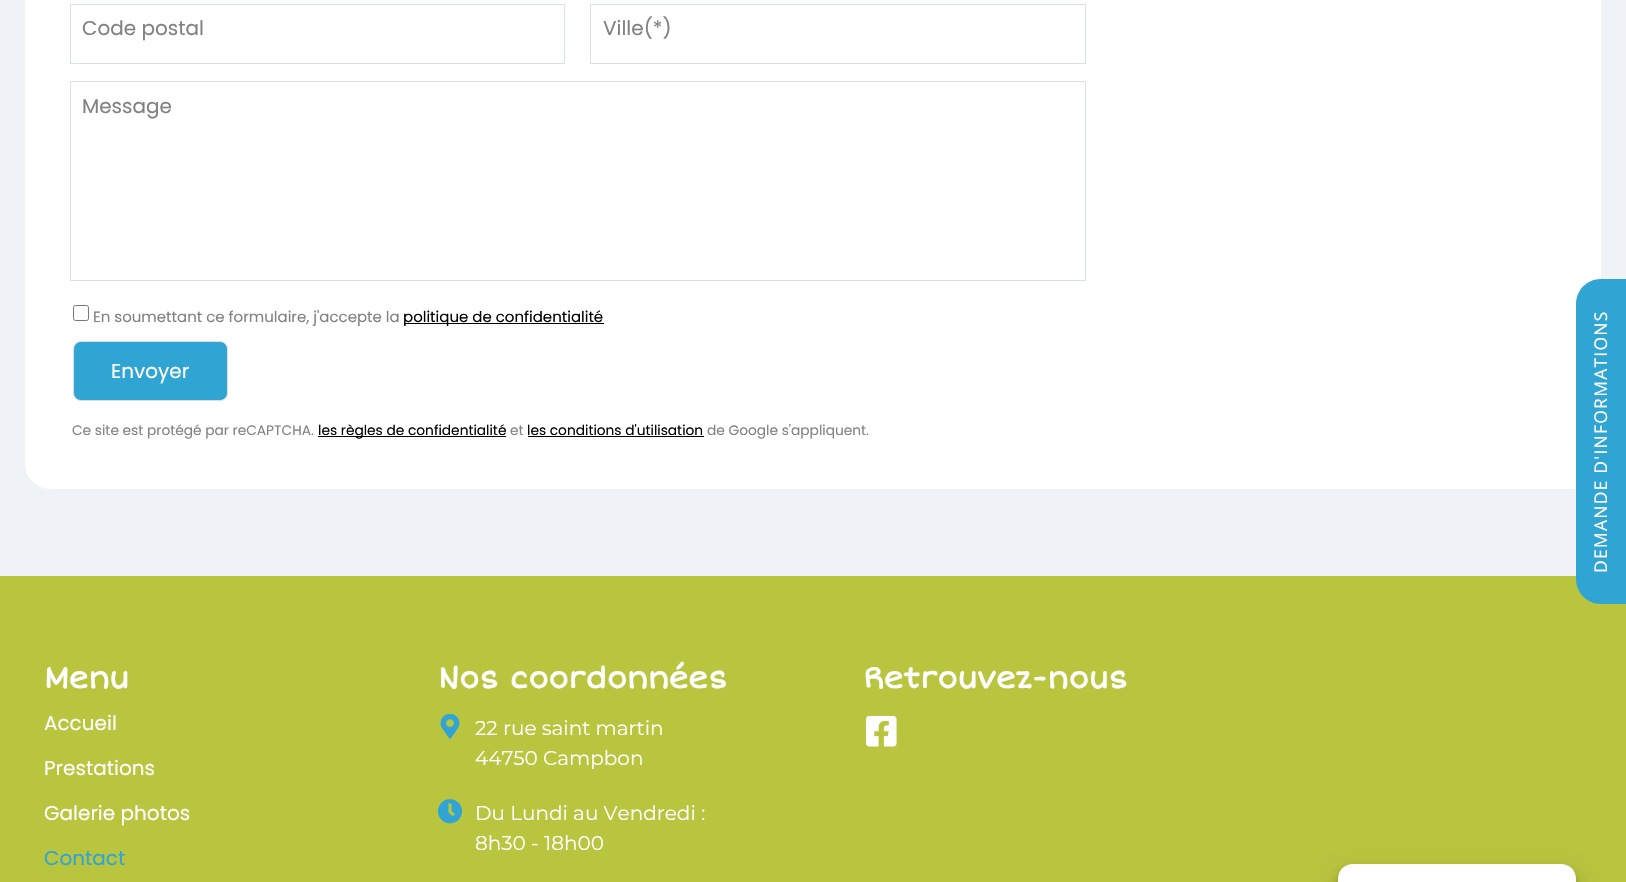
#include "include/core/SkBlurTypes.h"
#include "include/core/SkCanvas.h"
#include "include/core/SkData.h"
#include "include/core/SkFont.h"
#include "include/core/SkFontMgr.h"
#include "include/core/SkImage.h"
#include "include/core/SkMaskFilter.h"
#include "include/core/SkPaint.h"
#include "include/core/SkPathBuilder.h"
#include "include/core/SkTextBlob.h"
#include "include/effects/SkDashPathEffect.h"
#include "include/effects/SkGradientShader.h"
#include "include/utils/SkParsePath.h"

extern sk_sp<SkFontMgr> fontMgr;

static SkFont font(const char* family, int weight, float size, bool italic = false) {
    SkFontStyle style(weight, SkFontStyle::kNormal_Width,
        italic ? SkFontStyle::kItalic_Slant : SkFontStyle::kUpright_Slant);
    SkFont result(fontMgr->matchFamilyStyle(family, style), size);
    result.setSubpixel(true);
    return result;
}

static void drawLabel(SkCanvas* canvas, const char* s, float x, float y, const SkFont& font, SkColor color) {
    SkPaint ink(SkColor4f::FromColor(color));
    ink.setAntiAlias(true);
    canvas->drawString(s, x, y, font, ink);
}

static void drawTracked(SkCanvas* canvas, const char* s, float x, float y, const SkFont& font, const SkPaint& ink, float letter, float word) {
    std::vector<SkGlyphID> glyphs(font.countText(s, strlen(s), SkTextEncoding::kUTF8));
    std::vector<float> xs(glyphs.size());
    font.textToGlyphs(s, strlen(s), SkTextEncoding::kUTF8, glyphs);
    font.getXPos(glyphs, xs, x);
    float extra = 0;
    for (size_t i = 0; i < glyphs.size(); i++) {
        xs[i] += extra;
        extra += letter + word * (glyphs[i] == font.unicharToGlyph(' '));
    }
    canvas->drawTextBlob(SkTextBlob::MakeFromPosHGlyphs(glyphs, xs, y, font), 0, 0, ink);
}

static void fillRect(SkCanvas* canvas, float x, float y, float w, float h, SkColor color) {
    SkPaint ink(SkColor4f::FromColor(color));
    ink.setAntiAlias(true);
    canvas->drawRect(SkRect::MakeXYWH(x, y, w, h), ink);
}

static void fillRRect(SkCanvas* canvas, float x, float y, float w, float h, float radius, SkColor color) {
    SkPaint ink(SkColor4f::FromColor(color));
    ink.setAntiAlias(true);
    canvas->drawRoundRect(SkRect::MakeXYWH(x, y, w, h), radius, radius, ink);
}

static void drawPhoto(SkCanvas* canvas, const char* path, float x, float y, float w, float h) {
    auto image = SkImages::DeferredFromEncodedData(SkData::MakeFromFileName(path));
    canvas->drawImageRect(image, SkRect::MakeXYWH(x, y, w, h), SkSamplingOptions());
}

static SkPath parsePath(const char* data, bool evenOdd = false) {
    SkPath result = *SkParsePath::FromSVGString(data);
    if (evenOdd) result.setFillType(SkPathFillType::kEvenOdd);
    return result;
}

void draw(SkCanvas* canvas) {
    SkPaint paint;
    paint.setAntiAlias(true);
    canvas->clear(0xFFEFF2F7);
    fillRRect(canvas, 25, -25, 1576, 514, 25, 0xFFFFFFFF);
    paint.setStroke(true);
    paint.setStrokeWidth(1);
    paint.setColor(0xFFD8E1E7);
    canvas->drawRect(SkRect::MakeXYWH(70.5f, 4.5f, 494, 59), paint);
    SkFont font1 = font("Poppins", 400, 20);
    drawLabel(canvas, "Code postal", 82, 35, font1, 0xFF818181);
    canvas->drawRect(SkRect::MakeXYWH(590.5f, 4.5f, 495, 59), paint);
    drawLabel(canvas, "Ville(*)", 603, 35, font1, 0xFF818181);
    canvas->drawRect(SkRect::MakeXYWH(70.5f, 81.5f, 1015, 199), paint);
    drawLabel(canvas, "Message", 82, 113, font1, 0xFF818181);
    paint.setColor(0xFF767676);
    canvas->drawRoundRect(SkRect::MakeXYWH(73.5f, 305.5f, 15, 15), 2, 2, paint);
    SkFont font2 = font("Poppins", 400, 15);
    drawLabel(canvas, "En soumettant ce formulaire, j'accepte la", 93, 322, font2, 0xFF818181);
    fillRect(canvas, 404, 323, 200, 1, 0xFF000000);
    drawLabel(canvas, "politique de confidentialité", 403, 322, font2, 0xFF000000);
    paint.setStroke(false);
    paint.setColor(0xFF30A4D3);
    canvas->drawRoundRect(SkRect::MakeXYWH(73.5f, 341.5f, 154, 59), 7.5f, 7.5f, paint);
    paint.setStroke(true);
    paint.setColor(0xFFD8E1E7);
    canvas->drawRoundRect(SkRect::MakeXYWH(73.5f, 341.5f, 154, 59), 7.5f, 7.5f, paint);
    drawLabel(canvas, "Envoyer", 111, 378, font1, 0xFFFFFFFF);
    SkFont font3 = font("Poppins", 400, 13.75f);
    drawLabel(canvas, "Ce site est protégé par reCAPTCHA.", 72, 435, font3, 0xFF818181);
    fillRect(canvas, 318, 436, 188, 1, 0xFF000000);
    drawLabel(canvas, "les règles de confidentialité", 318, 435, font3, 0xFF000000);
    drawLabel(canvas, "et", 510, 435, font3, 0xFF818181);
    drawLabel(canvas, "les conditions d'utilisation", 527, 435, font3, 0xFF000000);
    fillRect(canvas, 528, 436, 176, 1, 0xFF000000);
    drawLabel(canvas, "de Google s'appliquent.", 707, 435, font3, 0xFF818181);
    fillRect(canvas, 0, 576, 1626, 306, 0xFFB9C43F);
    paint.setStroke(false);
    paint.setColor(0xFF30A4D3);
    canvas->drawPath(parsePath("M1576 579V304C1576 290 1587 279 1601 279H1626V604H1601C1587 604 1576 593 1576 579Z"), paint);
    SkFont font4 = font("Open Sans", 400, 17.5f);
    paint.setColor(0xFFFFFFFF);
    canvas->save();
    canvas->rotate(-90, 1607, 573);
    drawTracked(canvas, "DEMANDE D'INFORMATIONS", 1607, 573, font4, paint, 1.25f, 0);
    canvas->restore();
    SkFont font5 = font("Short Stack", 700, 30);
    drawLabel(canvas, "Menu", 44, 688, font5, 0xFFFFFFFF);
    drawLabel(canvas, "Accueil", 44, 730, font1, 0xFFFFFFFF);
    drawLabel(canvas, "Prestations", 44, 775, font1, 0xFFFFFFFF);
    drawLabel(canvas, "Galerie photos", 44, 820, font1, 0xFFFFFFFF);
    drawLabel(canvas, "Contact", 44, 865, font1, 0xFF30A4D3);
    drawLabel(canvas, "Nos coordonnées", 438, 688, font5, 0xFFFFFFFF);
    drawPhoto(canvas, "assets/img1.png", 440, 714, 20, 25);
    SkFont font6 = font("Montserrat", 400, 20);
    drawLabel(canvas, "22 rue saint martin", 475, 735, font6, 0xFFFFFFFF);
    drawLabel(canvas, "44750 Campbon", 475, 765, font6, 0xFFFFFFFF);
    drawPhoto(canvas, "assets/img2.png", 438, 799, 25, 25);
    drawLabel(canvas, "Du Lundi au Vendredi :", 475, 820, font6, 0xFFFFFFFF);
    drawLabel(canvas, "8h30 - 18h00", 475, 850, font6, 0xFFFFFFFF);
    drawLabel(canvas, "Retrouvez-nous", 863, 688, font5, 0xFFFFFFFF);
    drawPhoto(canvas, "assets/img3.png", 865, 715, 32, 32);
    paint.setColor(0x3B000000);
    paint.setMaskFilter(SkMaskFilter::MakeBlur(kNormal_SkBlurStyle, 4));
    canvas->drawRoundRect(SkRect::MakeXYWH(1338, 871, 238, 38), 15, 15, paint);
    paint.setMaskFilter(nullptr);
    paint.setColor(0x30000000);
    paint.setMaskFilter(SkMaskFilter::MakeBlur(kNormal_SkBlurStyle, 12.5f));
    canvas->drawRoundRect(SkRect::MakeXYWH(1338, 876, 238, 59), 15, 15, paint);
    paint.setMaskFilter(nullptr);
    paint.setColor(0xFFFFFFFF);
    canvas->drawPath(parsePath("M1353 864H1561C1569.5 864 1576 870.5 1576 879V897H1338V879C1338 870.5 1344.5 864 1353 864Z"), paint);
}
